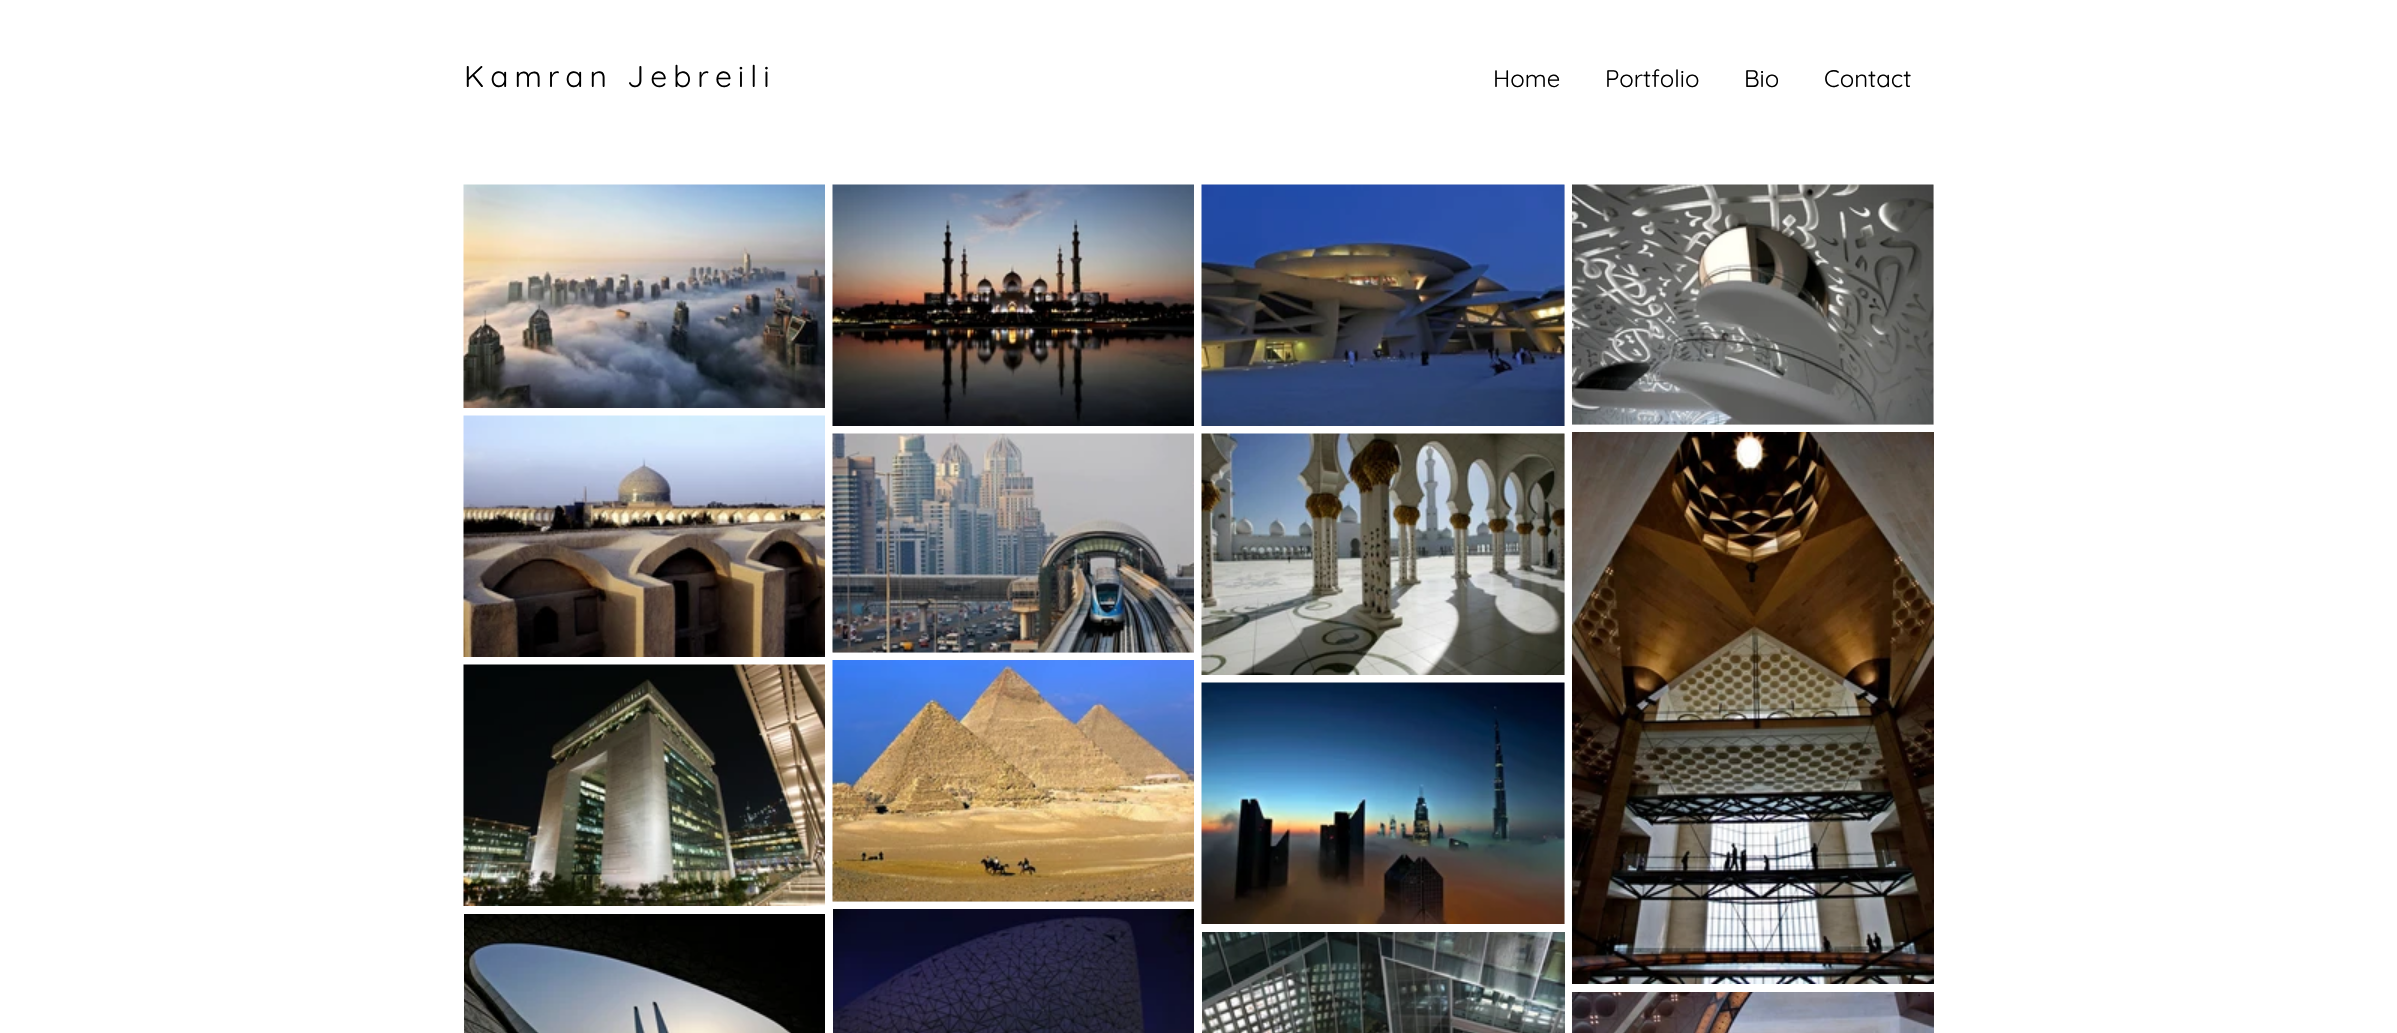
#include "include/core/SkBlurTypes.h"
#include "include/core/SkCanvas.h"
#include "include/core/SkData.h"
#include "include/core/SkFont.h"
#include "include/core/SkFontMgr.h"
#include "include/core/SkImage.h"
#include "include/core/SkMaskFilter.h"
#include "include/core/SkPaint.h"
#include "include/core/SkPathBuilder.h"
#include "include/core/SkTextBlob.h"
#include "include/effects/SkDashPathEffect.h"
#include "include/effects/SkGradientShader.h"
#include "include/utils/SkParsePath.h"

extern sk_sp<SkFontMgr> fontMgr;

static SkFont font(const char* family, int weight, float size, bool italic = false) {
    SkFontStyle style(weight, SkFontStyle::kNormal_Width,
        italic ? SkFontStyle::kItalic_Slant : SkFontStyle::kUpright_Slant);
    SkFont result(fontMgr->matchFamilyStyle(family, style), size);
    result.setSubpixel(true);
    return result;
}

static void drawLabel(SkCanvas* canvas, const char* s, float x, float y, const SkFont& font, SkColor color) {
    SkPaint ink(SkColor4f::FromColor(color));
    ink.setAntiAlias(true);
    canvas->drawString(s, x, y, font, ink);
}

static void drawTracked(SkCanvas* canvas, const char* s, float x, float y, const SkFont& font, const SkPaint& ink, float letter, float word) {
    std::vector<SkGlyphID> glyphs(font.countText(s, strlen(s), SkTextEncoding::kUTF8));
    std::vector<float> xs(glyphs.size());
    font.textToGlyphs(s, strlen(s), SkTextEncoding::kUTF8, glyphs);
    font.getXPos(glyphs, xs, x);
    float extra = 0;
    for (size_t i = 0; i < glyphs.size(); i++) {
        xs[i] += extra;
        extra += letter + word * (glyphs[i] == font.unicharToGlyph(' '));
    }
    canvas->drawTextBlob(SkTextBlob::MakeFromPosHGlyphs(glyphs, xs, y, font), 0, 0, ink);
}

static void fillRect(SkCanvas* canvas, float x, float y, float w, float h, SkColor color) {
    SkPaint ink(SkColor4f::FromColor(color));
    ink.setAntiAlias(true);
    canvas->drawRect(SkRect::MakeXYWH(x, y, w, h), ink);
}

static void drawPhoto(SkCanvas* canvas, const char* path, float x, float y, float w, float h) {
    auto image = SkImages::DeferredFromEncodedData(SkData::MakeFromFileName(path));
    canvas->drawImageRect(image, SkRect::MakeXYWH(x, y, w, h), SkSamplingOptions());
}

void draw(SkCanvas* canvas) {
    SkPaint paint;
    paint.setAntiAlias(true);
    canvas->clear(0xFFFFFFFF);
    SkFont font1 = font("Quicksand", 400, 30);
    paint.setColor(0xFF000000);
    drawTracked(canvas, "Kamran Jebreili", 464, 87, font1, paint, 6, 0);
    SkFont font2 = font("Quicksand", 400, 24);
    drawLabel(canvas, "Home", 1493, 87, font2, 0xFF000000);
    drawLabel(canvas, "Portfolio", 1605, 87, font2, 0xFF000000);
    drawLabel(canvas, "Bio", 1744, 87, font2, 0xFF000000);
    drawLabel(canvas, "Contact", 1824, 87, font2, 0xFF000000);
    drawPhoto(canvas, "assets/img1.png", 463, 184, 362, 224);
    drawPhoto(canvas, "assets/img2.png", 832, 184, 362, 242);
    fillRect(canvas, 1564, 185, 1, 241, 0xFFE8E6E6);
    drawPhoto(canvas, "assets/img3.png", 1201, 184, 364, 242);
    fillRect(canvas, 1572, 185, 362, 240, 0xFFE8E6E6);
    drawPhoto(canvas, "assets/img4.png", 1572, 184, 362, 241);
    drawPhoto(canvas, "assets/img5.png", 463, 415, 362, 242);
    fillRect(canvas, 833, 652, 361, 1, 0xFFE8E6E6);
    drawPhoto(canvas, "assets/img6.png", 832, 433, 362, 220);
    fillRect(canvas, 1564, 434, 1, 241, 0xFFE8E6E6);
    drawPhoto(canvas, "assets/img7.png", 1201, 433, 364, 242);
    drawPhoto(canvas, "assets/img8.png", 1572, 432, 362, 552);
    drawPhoto(canvas, "assets/img9.png", 463, 664, 362, 242);
    fillRect(canvas, 833, 901, 361, 1, 0xFFE8E6E6);
    drawPhoto(canvas, "assets/img10.png", 832, 660, 362, 242);
    fillRect(canvas, 1564, 683, 1, 241, 0xFFE8E6E6);
    drawPhoto(canvas, "assets/img11.png", 1201, 682, 364, 242);
    drawPhoto(canvas, "assets/img12.png", 464, 914, 361, 119);
    drawPhoto(canvas, "assets/img13.png", 833, 909, 361, 124);
    drawPhoto(canvas, "assets/img14.png", 1202, 932, 363, 101);
    drawPhoto(canvas, "assets/img15.png", 1572, 992, 362, 41);
}
